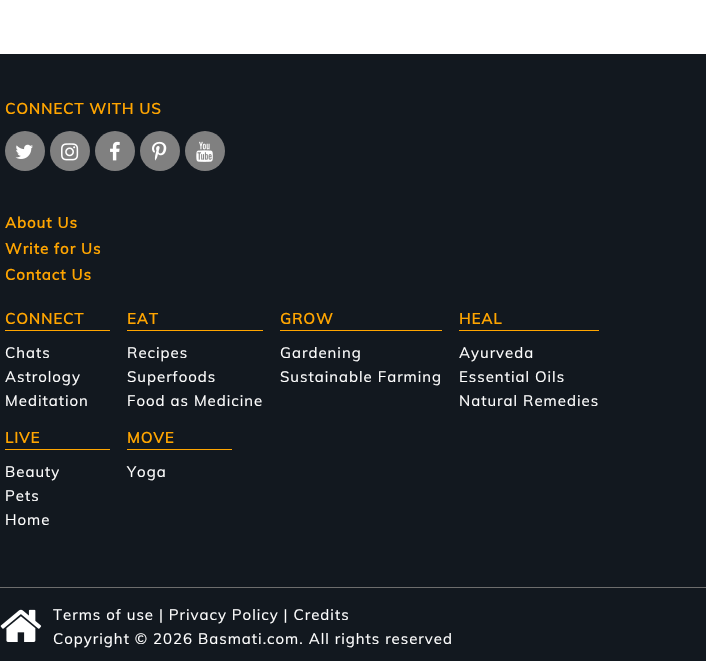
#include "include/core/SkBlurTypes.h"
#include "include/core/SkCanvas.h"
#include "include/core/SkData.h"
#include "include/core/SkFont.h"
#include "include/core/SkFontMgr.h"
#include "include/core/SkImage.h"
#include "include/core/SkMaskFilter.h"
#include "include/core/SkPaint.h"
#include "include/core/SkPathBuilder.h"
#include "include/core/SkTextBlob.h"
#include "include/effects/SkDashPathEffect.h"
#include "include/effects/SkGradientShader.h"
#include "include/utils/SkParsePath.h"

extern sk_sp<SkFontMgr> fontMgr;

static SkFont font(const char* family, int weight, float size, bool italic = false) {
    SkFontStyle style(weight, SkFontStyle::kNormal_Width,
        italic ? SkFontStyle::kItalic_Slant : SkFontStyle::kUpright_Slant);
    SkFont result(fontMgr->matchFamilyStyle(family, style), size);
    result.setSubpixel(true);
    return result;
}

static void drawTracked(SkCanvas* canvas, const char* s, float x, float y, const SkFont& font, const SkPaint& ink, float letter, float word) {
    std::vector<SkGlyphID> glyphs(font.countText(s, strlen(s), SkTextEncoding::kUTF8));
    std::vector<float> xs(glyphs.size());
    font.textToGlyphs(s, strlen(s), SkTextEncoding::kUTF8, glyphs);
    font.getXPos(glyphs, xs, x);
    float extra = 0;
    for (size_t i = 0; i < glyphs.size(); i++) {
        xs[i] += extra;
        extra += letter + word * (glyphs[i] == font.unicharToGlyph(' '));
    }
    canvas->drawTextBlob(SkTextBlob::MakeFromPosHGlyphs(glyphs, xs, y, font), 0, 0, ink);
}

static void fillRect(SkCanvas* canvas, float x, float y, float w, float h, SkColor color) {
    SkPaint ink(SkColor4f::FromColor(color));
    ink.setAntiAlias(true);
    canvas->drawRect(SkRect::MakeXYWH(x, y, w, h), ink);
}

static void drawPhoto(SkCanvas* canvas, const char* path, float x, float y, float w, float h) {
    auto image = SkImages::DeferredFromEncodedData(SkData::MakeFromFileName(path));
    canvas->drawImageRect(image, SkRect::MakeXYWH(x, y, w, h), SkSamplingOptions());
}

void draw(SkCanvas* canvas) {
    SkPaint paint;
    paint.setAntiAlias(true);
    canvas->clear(0xFFFFFFFF);
    fillRect(canvas, 0, 54, 706, 607, 0xFF12181F);
    SkFont font1 = font("Muli", 700, 15);
    paint.setColor(0xFFFFA500);
    drawTracked(canvas, "CONNECT WITH US", 5, 114, font1, paint, 1, 0);
    paint.setColor(0xFF808080);
    canvas->drawCircle(25, 151, 20, paint);
    drawPhoto(canvas, "assets/img1.png", 15, 144, 18, 15);
    canvas->drawCircle(70, 151, 20, paint);
    drawPhoto(canvas, "assets/img2.png", 61, 143, 18, 18);
    canvas->drawCircle(115, 151, 20, paint);
    drawPhoto(canvas, "assets/img3.png", 110, 141, 10, 20);
    canvas->drawCircle(160, 151, 20, paint);
    drawPhoto(canvas, "assets/img4.png", 152, 141, 15, 20);
    canvas->drawCircle(205, 151, 20, paint);
    drawPhoto(canvas, "assets/img5.png", 196, 141, 17, 21);
    paint.setColor(0xFFFFA500);
    drawTracked(canvas, "About Us", 5, 228, font1, paint, 1, 0);
    drawTracked(canvas, "Write for Us", 5, 254, font1, paint, 1, 0);
    drawTracked(canvas, "Contact Us", 5, 280, font1, paint, 1, 0);
    fillRect(canvas, 5, 330, 105, 1, 0xFFFFA500);
    drawTracked(canvas, "CONNECT", 5, 324, font1, paint, 1, 0);
    SkFont font2 = font("Muli", 400, 15);
    paint.setColor(0xFFFFFFFF);
    drawTracked(canvas, "Chats", 5, 358, font2, paint, 1, 0);
    drawTracked(canvas, "Astrology", 5, 382, font2, paint, 1, 0);
    drawTracked(canvas, "Meditation", 5, 406, font2, paint, 1, 0);
    fillRect(canvas, 127, 330, 136, 1, 0xFFFFA500);
    paint.setColor(0xFFFFA500);
    drawTracked(canvas, "EAT", 127, 324, font1, paint, 1, 0);
    paint.setColor(0xFFFFFFFF);
    drawTracked(canvas, "Recipes", 127, 358, font2, paint, 1, 0);
    drawTracked(canvas, "Superfoods", 127, 382, font2, paint, 1, 0);
    drawTracked(canvas, "Food as Medicine", 127, 406, font2, paint, 1, 0);
    fillRect(canvas, 280, 330, 162, 1, 0xFFFFA500);
    paint.setColor(0xFFFFA500);
    drawTracked(canvas, "GROW", 280, 324, font1, paint, 1, 0);
    paint.setColor(0xFFFFFFFF);
    drawTracked(canvas, "Gardening", 280, 358, font2, paint, 1, 0);
    drawTracked(canvas, "Sustainable Farming", 280, 382, font2, paint, 1, 0);
    fillRect(canvas, 459, 330, 140, 1, 0xFFFFA500);
    paint.setColor(0xFFFFA500);
    drawTracked(canvas, "HEAL", 459, 324, font1, paint, 1, 0);
    paint.setColor(0xFFFFFFFF);
    drawTracked(canvas, "Ayurveda", 459, 358, font2, paint, 1, 0);
    drawTracked(canvas, "Essential Oils", 459, 382, font2, paint, 1, 0);
    drawTracked(canvas, "Natural Remedies", 459, 406, font2, paint, 1, 0);
    fillRect(canvas, 5, 449, 105, 1, 0xFFFFA500);
    paint.setColor(0xFFFFA500);
    drawTracked(canvas, "LIVE", 5, 443, font1, paint, 1, 0);
    paint.setColor(0xFFFFFFFF);
    drawTracked(canvas, "Beauty", 5, 477, font2, paint, 1, 0);
    drawTracked(canvas, "Pets", 5, 501, font2, paint, 1, 0);
    drawTracked(canvas, "Home", 5, 525, font2, paint, 1, 0);
    fillRect(canvas, 127, 449, 105, 1, 0xFFFFA500);
    paint.setColor(0xFFFFA500);
    drawTracked(canvas, "MOVE", 127, 443, font1, paint, 1, 0);
    paint.setColor(0xFFFFFFFF);
    drawTracked(canvas, "Yoga", 127, 477, font2, paint, 1, 0);
    fillRect(canvas, 0, 587, 706, 1, 0xFF6D6D6D);
    drawPhoto(canvas, "assets/img6.png", 0, 609, 42, 33);
    drawTracked(canvas, "Terms of use | Privacy Policy | Credits", 53, 620, font2, paint, 1, 0);
    drawTracked(canvas, "Copyright © 2026 Basmati.com. All rights reserved", 53, 644, font2, paint, 1, 0);
}
